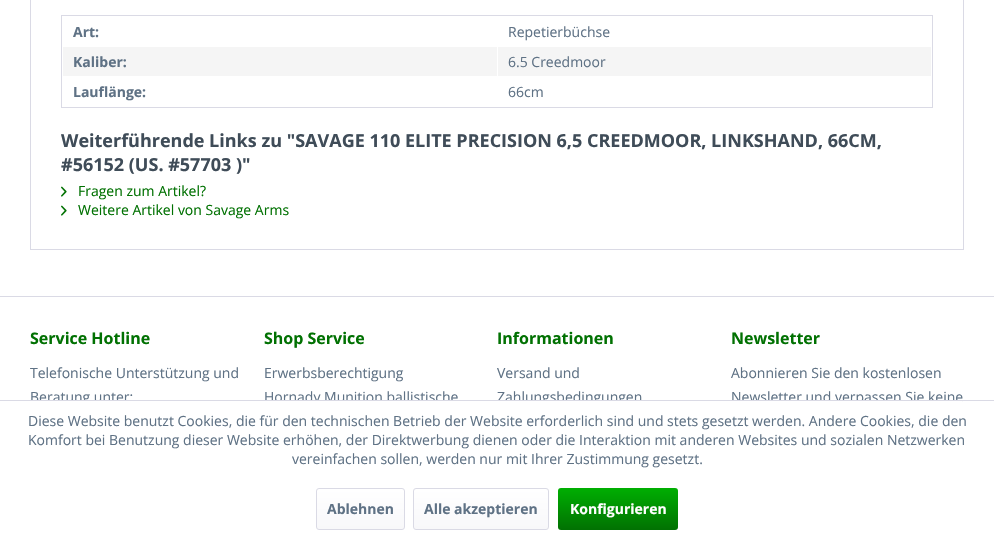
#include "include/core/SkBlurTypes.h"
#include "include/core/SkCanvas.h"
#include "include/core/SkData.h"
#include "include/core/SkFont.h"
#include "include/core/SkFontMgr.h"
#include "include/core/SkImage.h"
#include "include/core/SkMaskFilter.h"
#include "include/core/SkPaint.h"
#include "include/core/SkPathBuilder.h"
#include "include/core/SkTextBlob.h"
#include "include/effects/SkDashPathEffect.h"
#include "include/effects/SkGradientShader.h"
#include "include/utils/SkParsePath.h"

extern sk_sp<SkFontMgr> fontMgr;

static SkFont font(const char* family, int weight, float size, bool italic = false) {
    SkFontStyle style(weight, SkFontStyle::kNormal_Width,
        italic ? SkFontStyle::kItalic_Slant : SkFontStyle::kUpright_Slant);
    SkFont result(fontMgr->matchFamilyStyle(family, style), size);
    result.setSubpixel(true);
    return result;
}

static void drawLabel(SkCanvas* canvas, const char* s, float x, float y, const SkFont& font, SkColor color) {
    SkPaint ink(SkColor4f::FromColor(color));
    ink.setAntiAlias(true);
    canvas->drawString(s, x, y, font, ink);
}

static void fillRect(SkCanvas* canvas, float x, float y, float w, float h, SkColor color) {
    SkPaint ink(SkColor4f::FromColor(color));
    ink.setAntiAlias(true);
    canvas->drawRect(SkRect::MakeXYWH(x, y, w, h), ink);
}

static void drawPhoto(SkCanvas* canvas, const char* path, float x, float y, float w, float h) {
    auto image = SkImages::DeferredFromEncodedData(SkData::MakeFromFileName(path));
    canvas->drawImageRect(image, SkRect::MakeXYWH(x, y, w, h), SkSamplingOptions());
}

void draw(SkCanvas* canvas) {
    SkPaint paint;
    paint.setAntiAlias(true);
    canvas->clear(0xFFFFFFFF);
    paint.setStroke(true);
    paint.setStrokeWidth(1);
    paint.setColor(0xFFDADAE5);
    canvas->drawRect(SkRect::MakeXYWH(30.5f, -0.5f, 933, 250), paint);
    canvas->drawRect(SkRect::MakeXYWH(61.5f, 15.5f, 871, 92), paint);
    SkFont font1 = font("Open Sans", 700, 14);
    drawLabel(canvas, "Art:", 73, 37, font1, 0xFF5F7285);
    SkFont font2 = font("Open Sans", 400, 14);
    drawLabel(canvas, "Repetierbüchse", 508, 37, font2, 0xFF5F7285);
    fillRect(canvas, 63, 47, 434, 29, 0xFFF5F5F5);
    drawLabel(canvas, "Kaliber:", 73, 67, font1, 0xFF5F7285);
    fillRect(canvas, 498, 47, 433, 29, 0xFFF5F5F5);
    drawLabel(canvas, "6.5 Creedmoor", 508, 67, font2, 0xFF5F7285);
    drawLabel(canvas, "Lauflänge:", 73, 97, font1, 0xFF5F7285);
    drawLabel(canvas, "66cm", 508, 97, font2, 0xFF5F7285);
    SkFont font3 = font("Open Sans", 700, 18);
    drawLabel(canvas, "Weiterführende Links zu \"SAVAGE 110 ELITE PRECISION 6,5 CREEDMOOR, LINKSHAND, 66CM,", 61, 147, font3, 0xFF3F4C58);
    drawLabel(canvas, "#56152 (US. #57703 )\"", 61, 171, font3, 0xFF3F4C58);
    drawPhoto(canvas, "assets/img1.png", 61, 186, 6, 11);
    drawLabel(canvas, "Fragen zum Artikel?", 78, 196, font2, 0xFF017102);
    drawPhoto(canvas, "assets/img1.png", 61, 205, 6, 11);
    drawLabel(canvas, "Weitere Artikel von Savage Arms", 78, 215, font2, 0xFF017102);
    fillRect(canvas, 0, 296, 994, 1, 0xFFDADAE5);
    SkFont font4 = font("Open Sans", 700, 16);
    drawLabel(canvas, "Service Hotline", 30, 344, font4, 0xFF017102);
    drawLabel(canvas, "Telefonische Unterstützung und", 30, 378, font2, 0xFF5F7285);
    drawLabel(canvas, "Beratung unter:", 30, 402, font2, 0xFF5F7285);
    drawLabel(canvas, "Shop Service", 264, 344, font4, 0xFF017102);
    drawLabel(canvas, "Erwerbsberechtigung", 264, 378, font2, 0xFF5F7285);
    drawLabel(canvas, "Hornady Munition ballistische", 264, 402, font2, 0xFF5F7285);
    drawLabel(canvas, "Informationen", 497, 344, font4, 0xFF017102);
    drawLabel(canvas, "Versand und", 497, 378, font2, 0xFF5F7285);
    drawLabel(canvas, "Zahlungsbedingungen", 497, 402, font2, 0xFF5F7285);
    drawLabel(canvas, "Newsletter", 731, 344, font4, 0xFF017102);
    drawLabel(canvas, "Abonnieren Sie den kostenlosen", 731, 378, font2, 0xFF5F7285);
    drawLabel(canvas, "Newsletter und verpassen Sie keine", 731, 402, font2, 0xFF5F7285);
    fillRect(canvas, 31, 401, 931, 5, 0xFFFFFFFF);
    fillRect(canvas, 0, 400, 994, 1, 0xFFDADAE5);
    drawLabel(canvas, "Diese Website benutzt Cookies, die für den technischen Betrieb der Website erforderlich sind und stets gesetzt werden. Andere Cookies, die den", 28, 426, font2, 0xFF5F7285);
    drawLabel(canvas, "Komfort bei Benutzung dieser Website erhöhen, der Direktwerbung dienen oder die Interaktion mit anderen Websites und sozialen Netzwerken", 28, 445, font2, 0xFF5F7285);
    drawLabel(canvas, "vereinfachen sollen, werden nur mit Ihrer Zustimmung gesetzt.", 292, 464, font2, 0xFF5F7285);
    paint.setStroke(false);
    {
        const SkColor colors[] = {0xFFFFFFFF, 0xFFF8F8FA};
        const float stops[] = {0, 1};
        const SkPoint ends[] = {{361, 489}, {361, 529}};
        paint.setShader(SkGradientShader::MakeLinear(ends, colors, stops, 2, SkTileMode::kClamp));
        paint.setAlpha(255);
    }
    canvas->drawRoundRect(SkRect::MakeXYWH(317, 489, 87, 40), 2, 2, paint);
    paint.setStroke(true);
    paint.setShader(nullptr);
    paint.setColor(0xFFDADAE5);
    canvas->drawRoundRect(SkRect::MakeXYWH(316.5f, 488.5f, 88, 41), 2.5f, 2.5f, paint);
    drawLabel(canvas, "Ablehnen", 327, 514, font1, 0xFF5F7285);
    paint.setStroke(false);
    {
        const SkColor colors[] = {0xFFFFFFFF, 0xFFF8F8FA};
        const float stops[] = {0, 1};
        const SkPoint ends[] = {{481, 489}, {481, 529}};
        paint.setShader(SkGradientShader::MakeLinear(ends, colors, stops, 2, SkTileMode::kClamp));
        paint.setAlpha(255);
    }
    canvas->drawRoundRect(SkRect::MakeXYWH(414, 489, 134, 40), 2, 2, paint);
    paint.setStroke(true);
    paint.setShader(nullptr);
    paint.setColor(0xFFDADAE5);
    canvas->drawRoundRect(SkRect::MakeXYWH(413.5f, 488.5f, 135, 41), 2.5f, 2.5f, paint);
    drawLabel(canvas, "Alle akzeptieren", 424, 514, font1, 0xFF5F7285);
    paint.setStroke(false);
    {
        const SkColor colors[] = {0xFF00AF02, 0xFF017102};
        const float stops[] = {0, 1};
        const SkPoint ends[] = {{618, 488}, {618, 530}};
        paint.setShader(SkGradientShader::MakeLinear(ends, colors, stops, 2, SkTileMode::kClamp));
        paint.setAlpha(255);
    }
    canvas->drawRoundRect(SkRect::MakeXYWH(558, 488, 120, 42), 3, 3, paint);
    drawLabel(canvas, "Konfigurieren", 570, 514, font1, 0xFFFFFFFF);
}
